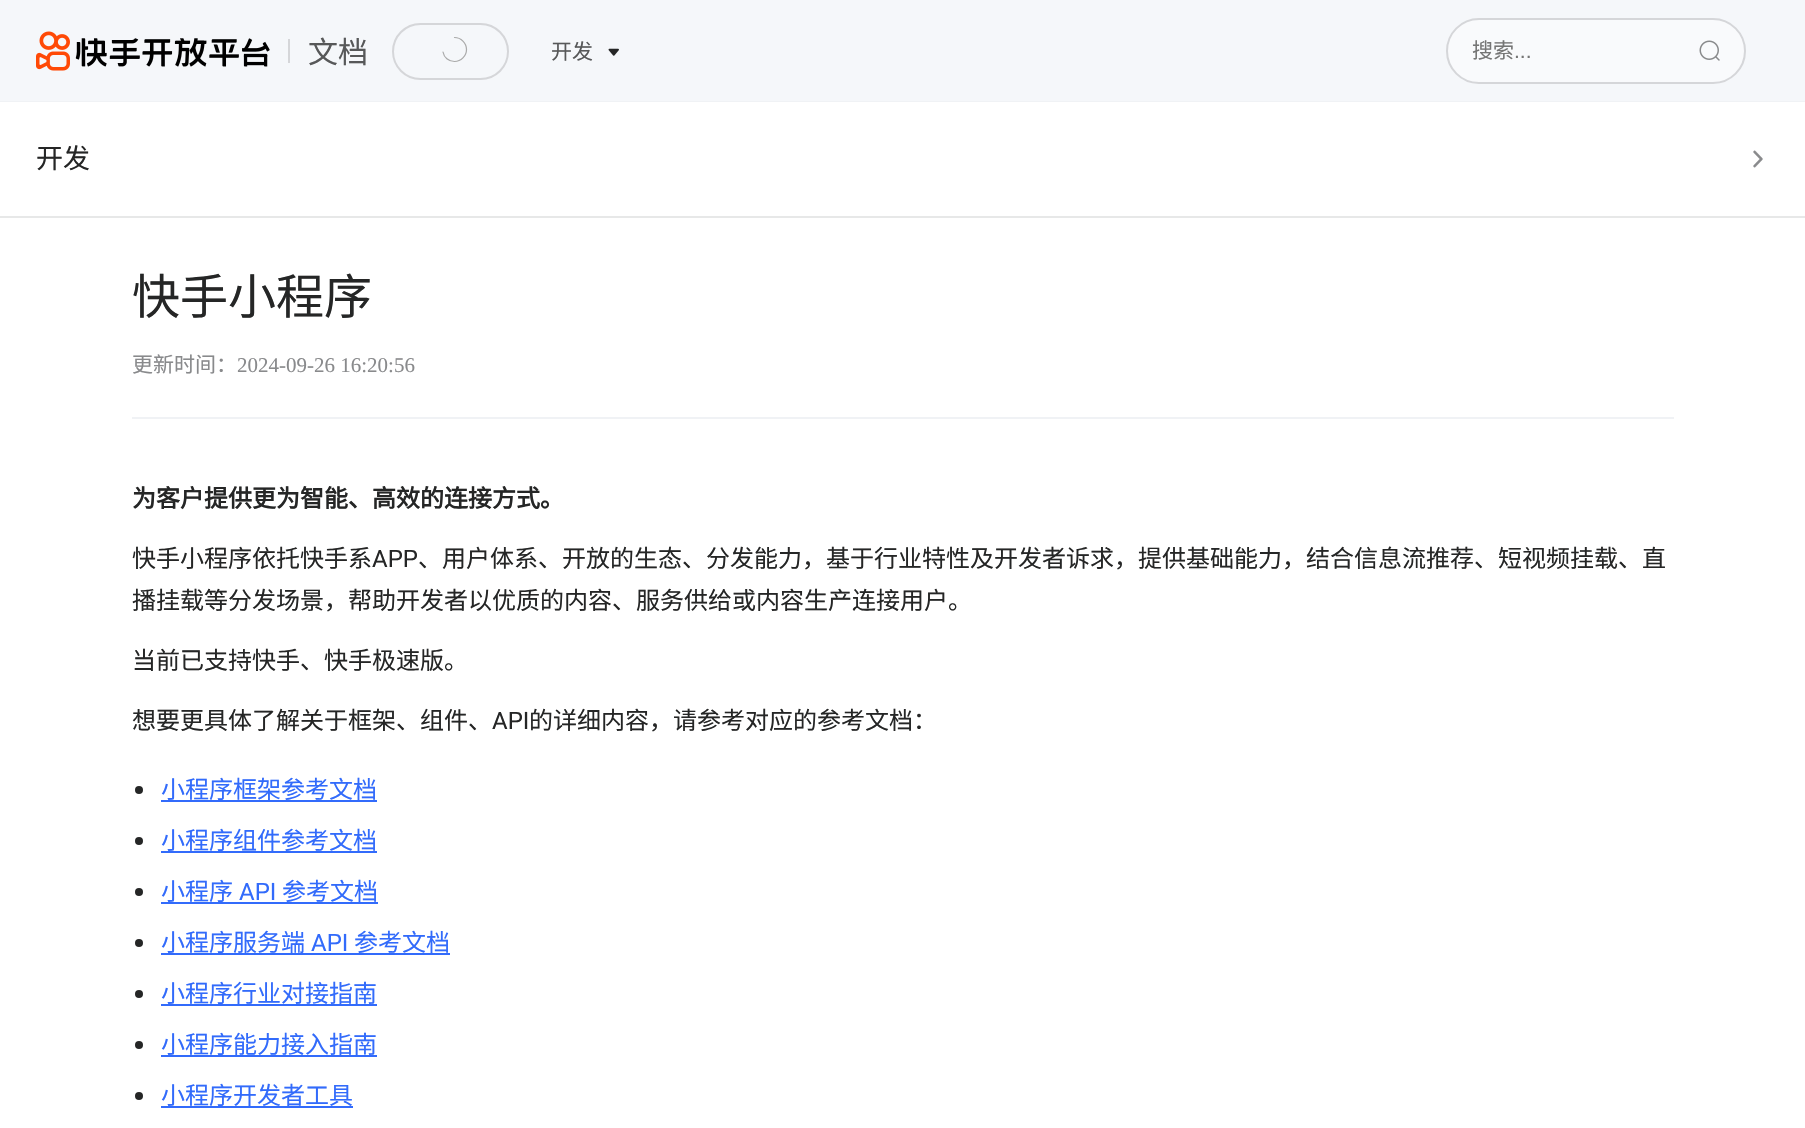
#include "include/core/SkBlurTypes.h"
#include "include/core/SkCanvas.h"
#include "include/core/SkData.h"
#include "include/core/SkFont.h"
#include "include/core/SkFontMgr.h"
#include "include/core/SkImage.h"
#include "include/core/SkMaskFilter.h"
#include "include/core/SkPaint.h"
#include "include/core/SkPathBuilder.h"
#include "include/core/SkTextBlob.h"
#include "include/effects/SkDashPathEffect.h"
#include "include/effects/SkGradientShader.h"
#include "include/utils/SkParsePath.h"

extern sk_sp<SkFontMgr> fontMgr;

static SkFont font(const char* family, int weight, float size, bool italic = false) {
    SkFontStyle style(weight, SkFontStyle::kNormal_Width,
        italic ? SkFontStyle::kItalic_Slant : SkFontStyle::kUpright_Slant);
    SkFont result(fontMgr->matchFamilyStyle(family, style), size);
    result.setSubpixel(true);
    return result;
}

static void drawLabel(SkCanvas* canvas, const char* s, float x, float y, const SkFont& font, SkColor color) {
    SkPaint ink(SkColor4f::FromColor(color));
    ink.setAntiAlias(true);
    canvas->drawString(s, x, y, font, ink);
}

static void fillRect(SkCanvas* canvas, float x, float y, float w, float h, SkColor color) {
    SkPaint ink(SkColor4f::FromColor(color));
    ink.setAntiAlias(true);
    canvas->drawRect(SkRect::MakeXYWH(x, y, w, h), ink);
}

static void drawPhoto(SkCanvas* canvas, const char* path, float x, float y, float w, float h) {
    auto image = SkImages::DeferredFromEncodedData(SkData::MakeFromFileName(path));
    canvas->drawImageRect(image, SkRect::MakeXYWH(x, y, w, h), SkSamplingOptions());
}

static SkPath parsePath(const char* data, bool evenOdd = false) {
    SkPath result = *SkParsePath::FromSVGString(data);
    if (evenOdd) result.setFillType(SkPathFillType::kEvenOdd);
    return result;
}

void draw(SkCanvas* canvas) {
    SkPaint paint;
    paint.setAntiAlias(true);
    canvas->clear(0xFFFFFFFF);
    fillRect(canvas, 0, 0, 1805, 101, 0xFFF5F7FA);
    fillRect(canvas, 0, 101, 1805, 1, 0xFFF0F2F5);
    drawPhoto(canvas, "assets/img1.png", 36, 31, 234, 40);
    fillRect(canvas, 288, 39, 2, 24, 0xFFD5D6D9);
    SkFont font1 = font("Noto Sans CJK SC", 400, 30);
    drawLabel(canvas, "文档", 308, 63, font1, 0xFF575859);
    paint.setStroke(true);
    paint.setStrokeWidth(2);
    paint.setColor(0xFFD5D6D9);
    canvas->drawRoundRect(SkRect::MakeXYWH(393, 24, 115, 55), 27.5f, 27.5f, paint);
    paint.setStrokeWidth(1.2f);
    paint.setStrokeCap(SkPaint::kRound_Cap);
    paint.setColor(0xFFA9A9A9);
    canvas->drawPath(parsePath("M454.5 37.5C461 37.5 466.5 43 466.5 49.5C466.5 56 461 61.5 454.5 61.5C448.5 61.5 444 57.5 443 52"), paint);
    SkFont font2 = font("Noto Sans CJK SC", 400, 21);
    drawLabel(canvas, "开发", 551, 59, font2, 0xFF575859);
    drawPhoto(canvas, "assets/img2.png", 608, 48, 11, 8);
    paint.setStroke(false);
    paint.setColor(0xFFF9FAFC);
    canvas->drawRoundRect(SkRect::MakeXYWH(1447, 19, 298, 64), 32, 32, paint);
    paint.setStroke(true);
    paint.setStrokeWidth(2);
    paint.setStrokeCap(SkPaint::kButt_Cap);
    paint.setColor(0xFFD5D6D9);
    canvas->drawRoundRect(SkRect::MakeXYWH(1447, 19, 298, 64), 32, 32, paint);
    drawLabel(canvas, "搜索", 1472, 58, font2, 0xFF757575);
    SkFont font3 = font("Liberation Sans", 400, 21);
    drawLabel(canvas, "...", 1514, 58, font3, 0xFF757575);
    drawPhoto(canvas, "assets/img3.png", 1699, 40, 21, 21);
    fillRect(canvas, 0, 216, 1805, 2, 0xFFE7E8E8);
    SkFont font4 = font("Noto Sans CJK SC", 400, 27);
    drawLabel(canvas, "开发", 36, 168, font4, 0xFF252626);
    drawPhoto(canvas, "assets/img4.png", 1753, 150, 10, 18);
    SkFont font5 = font("Noto Sans CJK SC", 400, 48);
    drawLabel(canvas, "快手小程序", 132, 314, font5, 0xFF252626);
    fillRect(canvas, 132, 417, 1542, 2, 0xFFF0F2F5);
    drawLabel(canvas, "更新时间：", 132, 372, font2, 0xFF898A8C);
    SkFont font6 = font("Liberation Serif", 400, 21);
    drawLabel(canvas, "2024-09-26 16:20:56", 237, 372, font6, 0xFF898A8C);
    SkFont font7 = font("Noto Sans CJK SC", 700, 24);
    drawLabel(canvas, "为客户提供更为智能、高效的连接方式。", 132, 507, font7, 0xFF252626);
    SkFont font8 = font("Noto Sans CJK SC", 400, 24);
    drawLabel(canvas, "快手小程序依托快手系", 132, 567, font8, 0xFF252626);
    SkFont font9 = font("Roboto", 400, 24);
    drawLabel(canvas, "APP", 372, 567, font9, 0xFF252626);
    drawLabel(canvas, "、用户体系、开放的生态、分发能力，基于行业特性及开发者诉求，提供基础能力，结合信息流推荐、短视频挂载、直", 418, 567, font8, 0xFF252626);
    drawLabel(canvas, "播挂载等分发场景，帮助开发者以优质的内容、服务供给或内容生产连接用户。", 132, 609, font8, 0xFF252626);
    drawLabel(canvas, "当前已支持快手、快手极速版。", 132, 669, font8, 0xFF252626);
    drawLabel(canvas, "想要更具体了解关于框架、组件、", 132, 729, font8, 0xFF252626);
    drawLabel(canvas, "API", 492, 729, font9, 0xFF252626);
    drawLabel(canvas, "的详细内容，请参考对应的参考文档：", 529, 729, font8, 0xFF252626);
    paint.setStroke(false);
    paint.setColor(0xFF252626);
    canvas->drawCircle(139, 790, 4, paint);
    drawLabel(canvas, "小程序框架参考文档", 161, 798, font8, 0xFF326BFB);
    fillRect(canvas, 161, 800, 216, 2, 0xFF326BFB);
    canvas->drawCircle(139, 841, 4, paint);
    drawLabel(canvas, "小程序组件参考文档", 161, 849, font8, 0xFF326BFB);
    fillRect(canvas, 161, 851, 216, 2, 0xFF326BFB);
    canvas->drawCircle(139, 892, 4, paint);
    drawLabel(canvas, "小程序", 161, 900, font8, 0xFF326BFB);
    drawLabel(canvas, "API", 239, 900, font9, 0xFF326BFB);
    fillRect(canvas, 161, 902, 217, 2, 0xFF326BFB);
    drawLabel(canvas, "参考文档", 282, 900, font8, 0xFF326BFB);
    canvas->drawCircle(139, 943, 4, paint);
    drawLabel(canvas, "小程序服务端", 161, 951, font8, 0xFF326BFB);
    drawLabel(canvas, "API", 311, 951, font9, 0xFF326BFB);
    fillRect(canvas, 161, 953, 289, 2, 0xFF326BFB);
    drawLabel(canvas, "参考文档", 354, 951, font8, 0xFF326BFB);
    canvas->drawCircle(139, 994, 4, paint);
    drawLabel(canvas, "小程序行业对接指南", 161, 1002, font8, 0xFF326BFB);
    fillRect(canvas, 161, 1004, 216, 2, 0xFF326BFB);
    canvas->drawCircle(139, 1045, 4, paint);
    drawLabel(canvas, "小程序能力接入指南", 161, 1053, font8, 0xFF326BFB);
    fillRect(canvas, 161, 1055, 216, 2, 0xFF326BFB);
    canvas->drawCircle(139, 1096, 4, paint);
    drawLabel(canvas, "小程序开发者工具", 161, 1104, font8, 0xFF326BFB);
    fillRect(canvas, 161, 1106, 192, 2, 0xFF326BFB);
}
